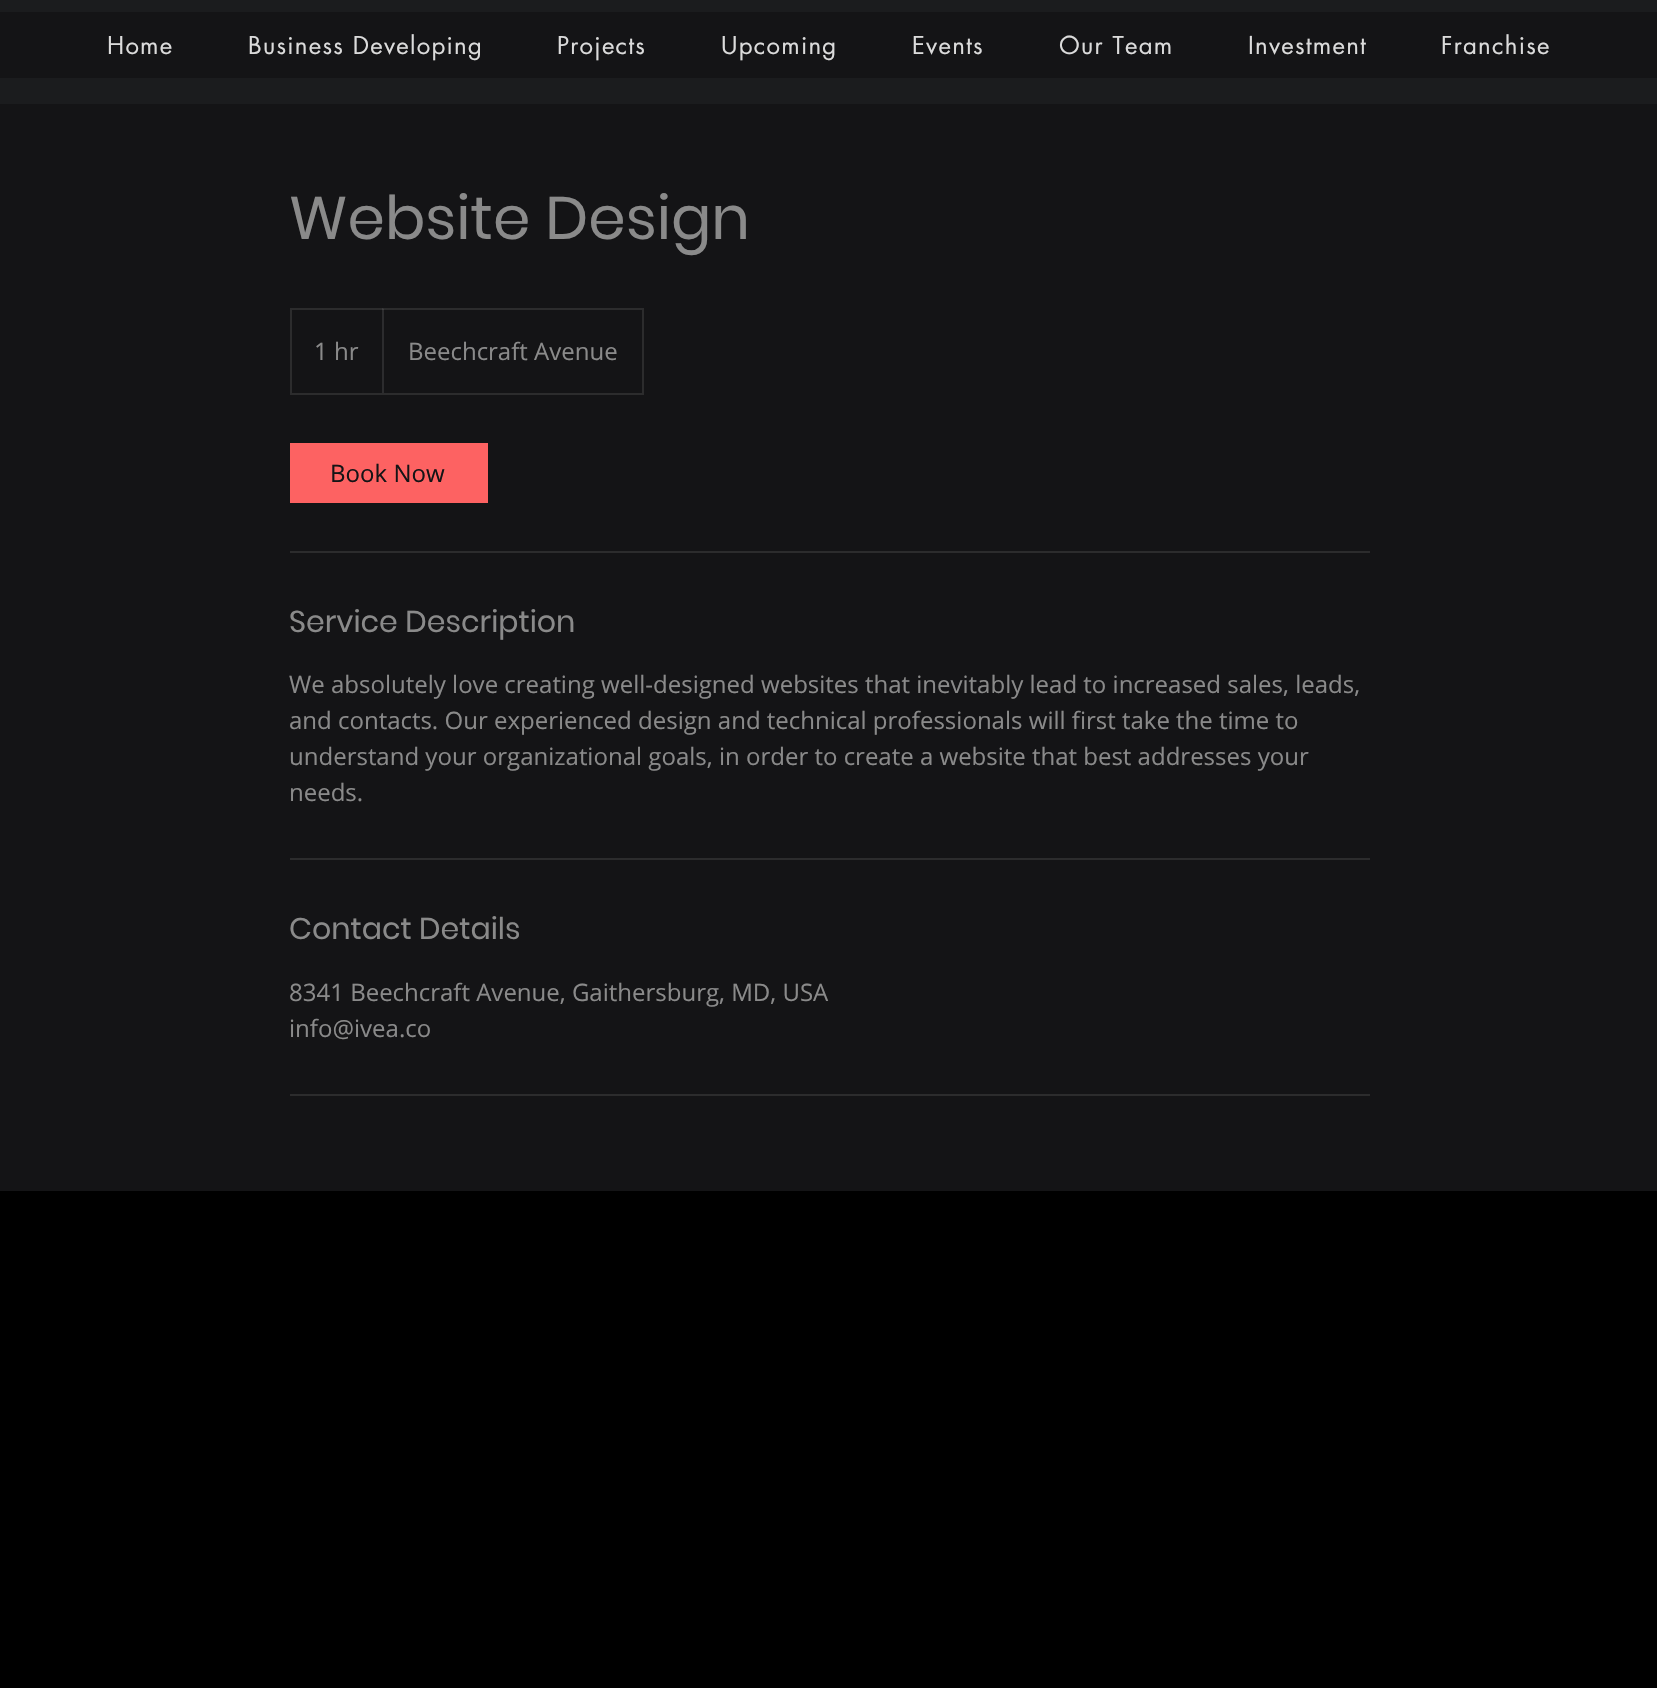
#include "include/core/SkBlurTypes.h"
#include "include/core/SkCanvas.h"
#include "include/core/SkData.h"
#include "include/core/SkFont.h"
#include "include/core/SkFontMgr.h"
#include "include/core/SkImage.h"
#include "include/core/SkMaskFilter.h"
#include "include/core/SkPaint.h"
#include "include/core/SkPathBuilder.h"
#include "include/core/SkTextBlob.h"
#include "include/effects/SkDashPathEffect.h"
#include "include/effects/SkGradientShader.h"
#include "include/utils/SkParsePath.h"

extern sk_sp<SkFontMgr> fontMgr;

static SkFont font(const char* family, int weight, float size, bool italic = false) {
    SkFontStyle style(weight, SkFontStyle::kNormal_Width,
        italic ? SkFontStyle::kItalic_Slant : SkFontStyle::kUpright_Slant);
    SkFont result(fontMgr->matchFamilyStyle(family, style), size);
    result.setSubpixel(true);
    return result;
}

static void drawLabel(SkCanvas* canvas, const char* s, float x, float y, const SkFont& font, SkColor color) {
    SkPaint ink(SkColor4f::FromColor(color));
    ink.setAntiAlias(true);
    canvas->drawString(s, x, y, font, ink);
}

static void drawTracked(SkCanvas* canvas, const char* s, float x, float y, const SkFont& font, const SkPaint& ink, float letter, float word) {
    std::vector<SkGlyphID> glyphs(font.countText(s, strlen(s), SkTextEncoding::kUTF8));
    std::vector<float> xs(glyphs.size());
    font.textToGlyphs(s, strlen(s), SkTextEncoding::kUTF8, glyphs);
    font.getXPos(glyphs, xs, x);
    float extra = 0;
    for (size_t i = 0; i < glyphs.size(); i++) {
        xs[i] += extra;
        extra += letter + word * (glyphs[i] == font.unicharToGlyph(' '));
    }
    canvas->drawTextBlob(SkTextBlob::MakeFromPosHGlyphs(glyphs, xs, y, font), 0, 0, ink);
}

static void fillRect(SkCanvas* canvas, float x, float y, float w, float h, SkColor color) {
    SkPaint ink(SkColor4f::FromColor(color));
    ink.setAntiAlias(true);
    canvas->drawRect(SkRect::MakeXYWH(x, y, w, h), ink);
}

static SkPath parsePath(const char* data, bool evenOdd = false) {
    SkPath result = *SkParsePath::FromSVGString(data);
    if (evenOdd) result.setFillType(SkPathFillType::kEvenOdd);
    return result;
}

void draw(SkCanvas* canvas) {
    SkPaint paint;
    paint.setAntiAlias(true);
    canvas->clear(0xFF000000);
    fillRect(canvas, 0, 0, 1657, 104, 0xFF1B1C1E);
    fillRect(canvas, 0, 12, 1657, 66, 0xFF141416);
    SkFont font1 = font("futura", 400, 24);
    paint.setColor(0xFFDBDBDB);
    drawTracked(canvas, "Home", 107, 54, font1, paint, 1.25f, 0);
    drawTracked(canvas, "Business Developing", 248, 54, font1, paint, 1.25f, 0);
    drawTracked(canvas, "Projects", 557, 54, font1, paint, 1.25f, 0);
    drawTracked(canvas, "Upcoming", 721, 54, font1, paint, 1.25f, 0);
    drawTracked(canvas, "Events", 912, 54, font1, paint, 1.25f, 0);
    drawTracked(canvas, "Our Team", 1059, 54, font1, paint, 1.25f, 0);
    drawTracked(canvas, "Investment", 1248, 54, font1, paint, 1.25f, 0);
    drawTracked(canvas, "Franchise", 1441, 54, font1, paint, 1.25f, 0);
    fillRect(canvas, 0, 104, 1657, 1087, 0xFF141416);
    SkFont font2 = font("Poppins", 400, 60);
    drawLabel(canvas, "Website Design", 289, 239, font2, 0xFF8A8A8A);
    paint.setStroke(true);
    paint.setStrokeWidth(2);
    paint.setColor(0xFF2C2C2D);
    canvas->drawRect(SkRect::MakeXYWH(291, 309, 352, 85), paint);
    SkFont font3 = font("Open Sans", 400, 24);
    drawLabel(canvas, "1 hr", 314, 360, font3, 0xFF8A8A8A);
    paint.setStroke(false);
    paint.setColor(0x338A8A8A);
    canvas->drawPath(parsePath("M382 393V308L384 309V393Z"), paint);
    drawLabel(canvas, "Beechcraft Avenue", 408, 360, font3, 0xFF8A8A8A);
    fillRect(canvas, 290, 443, 198, 60, 0xFFFD6262);
    drawLabel(canvas, "Book Now", 330, 482, font3, 0xFF141416);
    fillRect(canvas, 290, 551, 1080, 2, 0xFF2C2C2D);
    SkFont font4 = font("Poppins", 400, 30);
    drawLabel(canvas, "Service Description", 289, 632, font4, 0xFF8A8A8A);
    drawLabel(canvas, "We absolutely love creating well-designed websites that inevitably lead to increased sales, leads,", 289, 693, font3, 0xFF8A8A8A);
    drawLabel(canvas, "and contacts. Our experienced design and technical professionals will first take the time to", 289, 729, font3, 0xFF8A8A8A);
    drawLabel(canvas, "understand your organizational goals, in order to create a website that best addresses your", 289, 765, font3, 0xFF8A8A8A);
    drawLabel(canvas, "needs.", 289, 801, font3, 0xFF8A8A8A);
    fillRect(canvas, 290, 858, 1080, 2, 0xFF2C2C2D);
    drawLabel(canvas, "Contact Details", 289, 939, font4, 0xFF8A8A8A);
    drawLabel(canvas, "8341 Beechcraft Avenue, Gaithersburg, MD, USA", 289, 1001, font3, 0xFF8A8A8A);
    drawLabel(canvas, "info@ivea.co", 289, 1037, font3, 0xFF8A8A8A);
    fillRect(canvas, 290, 1094, 1080, 2, 0xFF2C2C2D);
}
